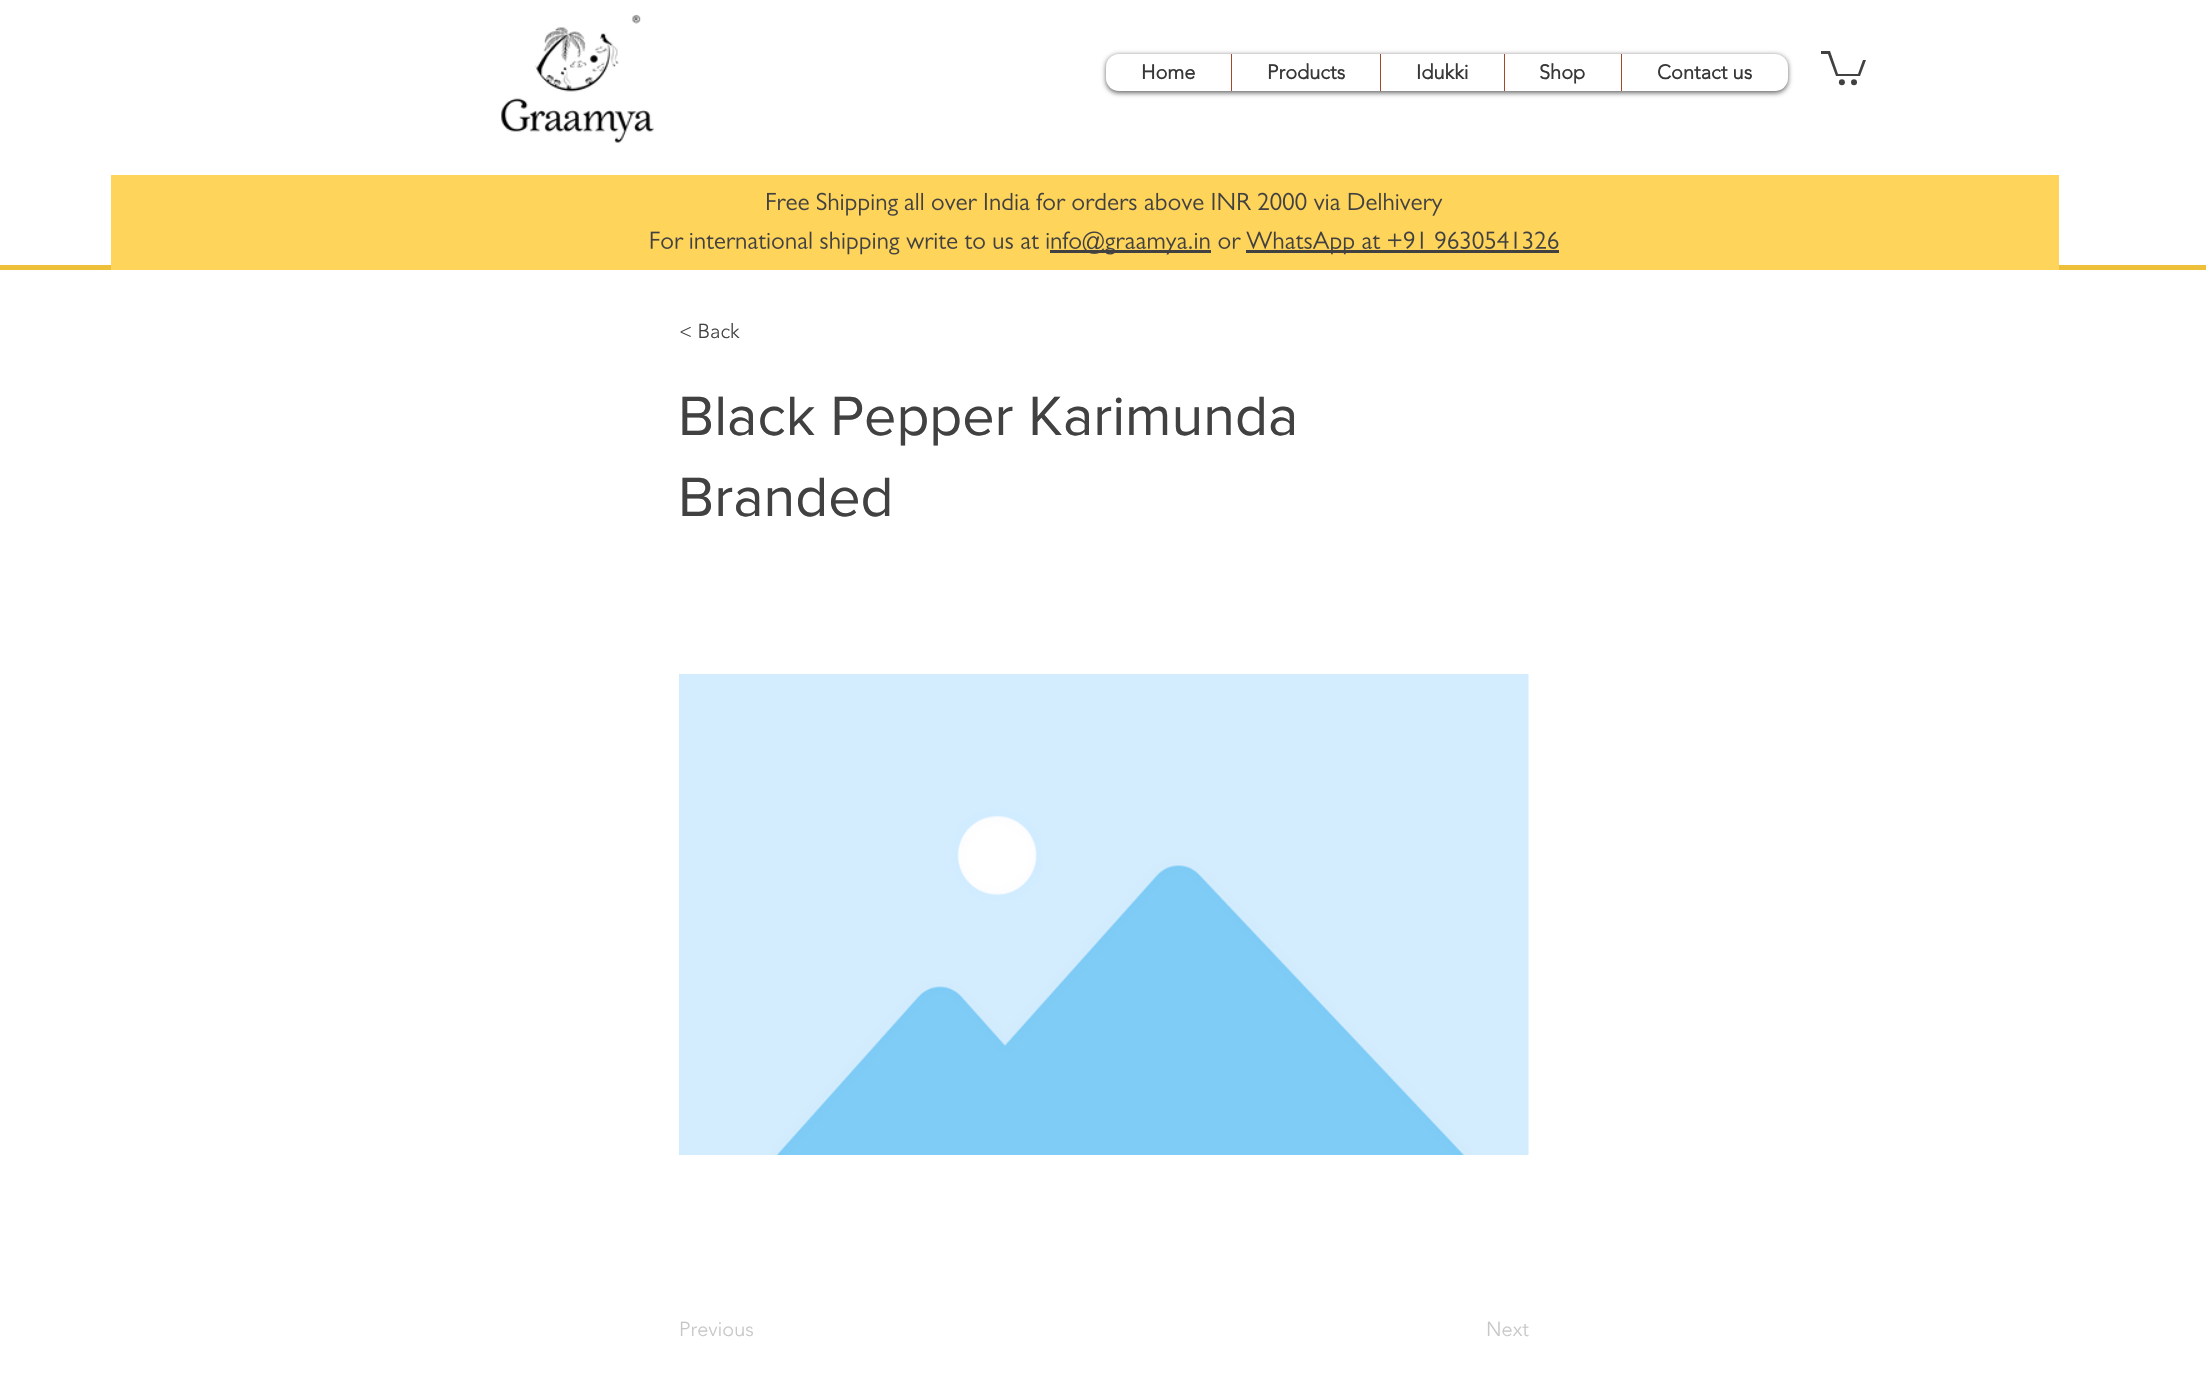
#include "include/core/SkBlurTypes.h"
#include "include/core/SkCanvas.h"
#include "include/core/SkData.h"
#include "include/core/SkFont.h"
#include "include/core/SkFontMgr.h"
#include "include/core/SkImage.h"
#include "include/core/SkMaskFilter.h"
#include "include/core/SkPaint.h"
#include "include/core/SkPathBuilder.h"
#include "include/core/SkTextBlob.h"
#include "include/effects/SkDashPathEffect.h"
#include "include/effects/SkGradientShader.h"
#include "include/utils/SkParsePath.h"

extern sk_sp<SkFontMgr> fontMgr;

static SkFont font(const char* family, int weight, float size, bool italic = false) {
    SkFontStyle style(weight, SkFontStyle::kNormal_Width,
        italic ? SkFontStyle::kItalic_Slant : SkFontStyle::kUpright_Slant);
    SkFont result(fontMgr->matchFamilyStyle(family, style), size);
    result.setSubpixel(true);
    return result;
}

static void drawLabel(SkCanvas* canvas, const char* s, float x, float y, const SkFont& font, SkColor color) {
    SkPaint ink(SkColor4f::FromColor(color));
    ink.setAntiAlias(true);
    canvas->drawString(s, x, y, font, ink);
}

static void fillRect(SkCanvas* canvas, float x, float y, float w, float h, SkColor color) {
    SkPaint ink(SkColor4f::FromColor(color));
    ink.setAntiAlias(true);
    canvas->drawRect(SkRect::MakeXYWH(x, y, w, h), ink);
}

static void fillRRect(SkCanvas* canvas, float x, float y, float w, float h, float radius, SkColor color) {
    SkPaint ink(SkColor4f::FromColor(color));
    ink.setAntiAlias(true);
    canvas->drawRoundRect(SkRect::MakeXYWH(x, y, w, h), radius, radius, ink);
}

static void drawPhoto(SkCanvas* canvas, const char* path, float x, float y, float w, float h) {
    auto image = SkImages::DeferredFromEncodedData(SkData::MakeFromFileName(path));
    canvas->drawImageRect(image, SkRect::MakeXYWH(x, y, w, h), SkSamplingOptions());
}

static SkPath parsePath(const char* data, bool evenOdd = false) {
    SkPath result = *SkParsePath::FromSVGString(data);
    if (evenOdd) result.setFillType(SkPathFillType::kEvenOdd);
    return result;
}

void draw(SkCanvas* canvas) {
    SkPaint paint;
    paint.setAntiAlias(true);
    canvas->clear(0xFFFFFFFF);
    drawPhoto(canvas, "assets/img1.png", 501, 14, 153, 129);
    paint.setColor(0x99000000);
    paint.setMaskFilter(SkMaskFilter::MakeBlur(kNormal_SkBlurStyle, 2.5f));
    canvas->drawRoundRect(SkRect::MakeXYWH(1106, 55, 682, 38), 13, 13, paint);
    paint.setMaskFilter(nullptr);
    fillRRect(canvas, 1106, 54, 682, 37, 13, 0xFFFFFFFF);
    SkFont font1 = font("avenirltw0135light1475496", 700, 20);
    drawLabel(canvas, "Home", 1141, 79, font1, 0xFF383838);
    fillRect(canvas, 1231, 54, 1, 37, 0xFFA4472F);
    drawLabel(canvas, "Products", 1267, 79, font1, 0xFF383838);
    fillRect(canvas, 1380, 54, 1, 37, 0xFFA4472F);
    drawLabel(canvas, "Idukki", 1416, 79, font1, 0xFF383838);
    fillRect(canvas, 1504, 54, 1, 37, 0xFFA4472F);
    drawLabel(canvas, "Shop", 1539, 79, font1, 0xFF383838);
    fillRect(canvas, 1621, 54, 1, 37, 0xFFA4472F);
    drawLabel(canvas, "Contact us", 1657, 79, font1, 0xFF383838);
    paint.setColor(0xFF414141);
    canvas->drawPath(parsePath("M1866 60L1860 76H1836L1828 54H1821V51H1830L1838 74H1858L1863 60"), paint);
    canvas->drawCircle(1854, 82.3f, 3, paint);
    canvas->drawCircle(1841.9f, 82.3f, 3, paint);
    fillRect(canvas, 0, 265, 2206, 5, 0xFFEEC03A);
    fillRect(canvas, 111, 175, 1948, 95, 0xFFFFD45A);
    drawPhoto(canvas, "assets/img2.png", 767, 192, 131, 24);
    drawPhoto(canvas, "assets/img3.png", 904, 192, 233, 19);
    drawPhoto(canvas, "assets/img4.png", 1144, 192, 163, 19);
    drawPhoto(canvas, "assets/img5.png", 1313, 192, 130, 24);
    drawPhoto(canvas, "assets/img6.png", 650, 231, 34, 18);
    drawPhoto(canvas, "assets/img7.png", 690, 231, 210, 24);
    drawPhoto(canvas, "assets/img8.png", 906, 233, 143, 16);
    fillRect(canvas, 1050, 250, 161, 3, 0xFF414141);
    drawPhoto(canvas, "assets/img9.png", 1051, 231, 159, 24);
    drawPhoto(canvas, "assets/img10.png", 1218, 237, 23, 12);
    fillRect(canvas, 1246, 250, 313, 3, 0xFF414141);
    drawPhoto(canvas, "assets/img11.png", 1246, 231, 313, 24);
    SkFont font2 = font("avenirltw0135light1475496", 300, 20);
    drawLabel(canvas, "< Back", 679, 338, font2, 0xFF414141);
    SkFont font3 = font("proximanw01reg", 400, 57.5f);
    drawLabel(canvas, "Black Pepper Karimunda", 678, 435, font3, 0xFF414141);
    drawLabel(canvas, "Branded", 678, 516, font3, 0xFF414141);
    drawPhoto(canvas, "assets/img12.png", 679, 674, 850, 481);
    drawLabel(canvas, "Previous", 679, 1336, font2, 0xFFC7C7C7);
    drawLabel(canvas, "Next", 1486, 1336, font2, 0xFFC7C7C7);
}
